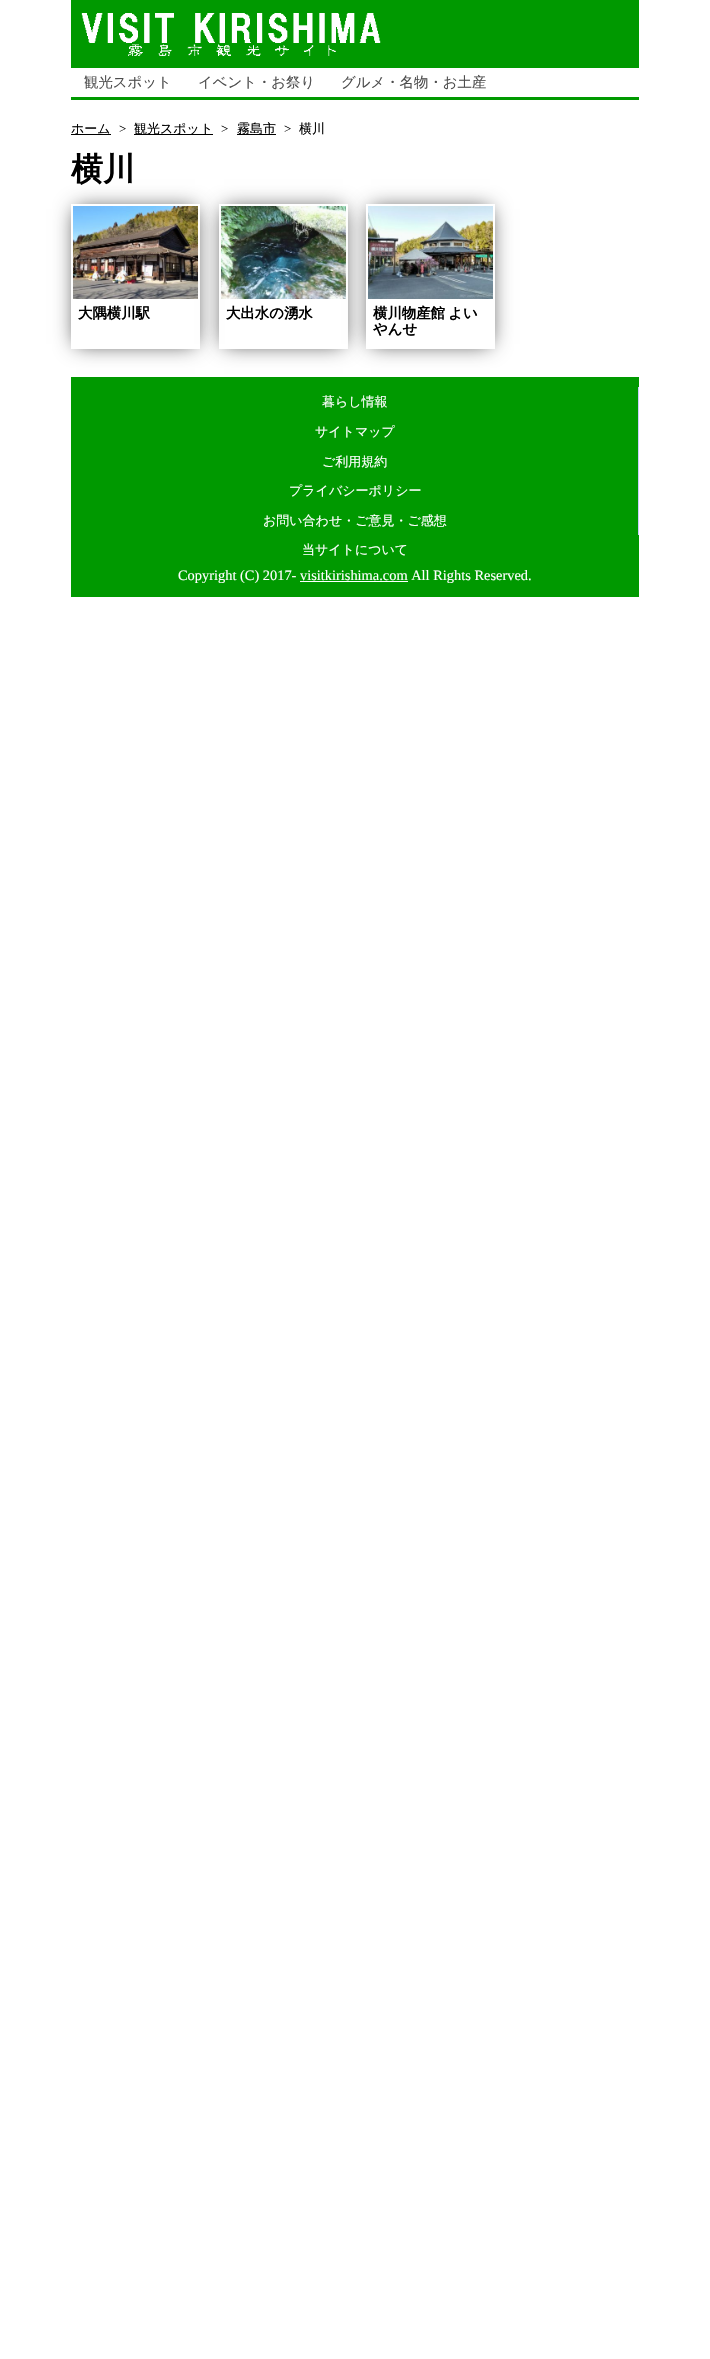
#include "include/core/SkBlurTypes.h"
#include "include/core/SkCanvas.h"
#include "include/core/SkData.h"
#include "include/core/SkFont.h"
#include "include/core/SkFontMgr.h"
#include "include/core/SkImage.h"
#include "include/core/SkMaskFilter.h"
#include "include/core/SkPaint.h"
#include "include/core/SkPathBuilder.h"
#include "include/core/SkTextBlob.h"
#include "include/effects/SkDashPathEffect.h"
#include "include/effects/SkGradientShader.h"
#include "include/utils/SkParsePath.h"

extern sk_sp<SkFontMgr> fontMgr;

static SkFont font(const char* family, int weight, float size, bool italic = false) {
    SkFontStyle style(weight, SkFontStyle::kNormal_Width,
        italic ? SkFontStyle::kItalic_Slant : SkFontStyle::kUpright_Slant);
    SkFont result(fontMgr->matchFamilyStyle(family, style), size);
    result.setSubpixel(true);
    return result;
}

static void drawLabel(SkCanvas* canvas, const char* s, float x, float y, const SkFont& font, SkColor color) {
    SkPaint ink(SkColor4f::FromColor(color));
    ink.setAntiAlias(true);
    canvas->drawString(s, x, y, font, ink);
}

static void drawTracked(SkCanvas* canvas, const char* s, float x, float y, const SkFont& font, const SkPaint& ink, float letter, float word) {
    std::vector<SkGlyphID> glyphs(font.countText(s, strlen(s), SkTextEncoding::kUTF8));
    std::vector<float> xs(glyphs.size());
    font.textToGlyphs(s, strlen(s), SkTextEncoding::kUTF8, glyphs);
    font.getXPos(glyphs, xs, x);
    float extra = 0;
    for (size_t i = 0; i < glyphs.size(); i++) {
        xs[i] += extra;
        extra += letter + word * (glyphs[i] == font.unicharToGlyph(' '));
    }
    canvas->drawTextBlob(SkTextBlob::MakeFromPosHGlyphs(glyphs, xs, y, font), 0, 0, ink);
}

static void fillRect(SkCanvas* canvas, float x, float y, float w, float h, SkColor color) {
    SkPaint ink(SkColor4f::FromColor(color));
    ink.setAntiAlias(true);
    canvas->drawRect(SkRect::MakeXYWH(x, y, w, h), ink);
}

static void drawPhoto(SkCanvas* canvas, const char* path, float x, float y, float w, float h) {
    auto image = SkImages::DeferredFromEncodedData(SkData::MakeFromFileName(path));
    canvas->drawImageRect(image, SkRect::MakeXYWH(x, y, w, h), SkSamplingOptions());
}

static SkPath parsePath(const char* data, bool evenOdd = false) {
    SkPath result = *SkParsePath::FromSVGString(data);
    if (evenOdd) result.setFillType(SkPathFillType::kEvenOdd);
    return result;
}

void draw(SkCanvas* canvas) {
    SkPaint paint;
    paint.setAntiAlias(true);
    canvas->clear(0xFFFFFFFF);
    fillRect(canvas, 71, 0, 568, 68, 0xFF009900);
    drawPhoto(canvas, "assets/img1.png", 81, 13, 300, 43);
    fillRect(canvas, 71, 97, 568, 3, 0xFF009900);
    SkFont font1 = font("WenQuanYi Zen Hei", 500, 14.4f);
    drawLabel(canvas, "観光スポット", 84, 87, font1, 0xFF4D4D4D);
    drawLabel(canvas, "イベント・お祭り", 198, 87, font1, 0xFF4D4D4D);
    drawLabel(canvas, "グルメ・名物・お土産", 341, 87, font1, 0xFF4D4D4D);
    fillRect(canvas, 71, 134, 40, 1, 0xFF000000);
    SkFont font2 = font("WenQuanYi Zen Hei", 500, 13);
    drawLabel(canvas, "ホーム", 71, 133, font2, 0xFF000000);
    SkFont font3 = font("Liberation Serif", 400, 13);
    drawLabel(canvas, ">", 119, 133, font3, 0xFF000000);
    fillRect(canvas, 134, 134, 79, 1, 0xFF000000);
    drawLabel(canvas, "観光スポット", 134, 133, font2, 0xFF000000);
    drawLabel(canvas, ">", 221, 133, font3, 0xFF000000);
    fillRect(canvas, 237, 134, 39, 1, 0xFF000000);
    drawLabel(canvas, "霧島市", 237, 133, font2, 0xFF000000);
    drawLabel(canvas, ">", 284, 133, font3, 0xFF000000);
    drawLabel(canvas, "横川", 299, 133, font2, 0xFF000000);
    SkFont font4 = font("WenQuanYi Zen Hei", 700, 32);
    drawLabel(canvas, "横川", 71, 180, font4, 0xFF000000);
    canvas->save();
    canvas->clipPath(parsePath("M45 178H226V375H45ZM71 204H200V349H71Z", true), true);
    paint.setColor(0xCC000000);
    paint.setMaskFilter(SkMaskFilter::MakeBlur(kNormal_SkBlurStyle, 10));
    canvas->drawRect(SkRect::MakeXYWH(76, 209, 119, 135), paint);
    paint.setMaskFilter(nullptr);
    canvas->restore();
    drawPhoto(canvas, "assets/img2.png", 73, 206, 125, 93);
    SkFont font5 = font("WenQuanYi Zen Hei", 700, 14.4f);
    drawLabel(canvas, "大隅横川駅", 78, 318, font5, 0xFF000000);
    canvas->save();
    canvas->clipPath(parsePath("M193 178H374V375H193ZM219 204H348V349H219Z", true), true);
    paint.setMaskFilter(SkMaskFilter::MakeBlur(kNormal_SkBlurStyle, 10));
    canvas->drawRect(SkRect::MakeXYWH(224, 209, 119, 135), paint);
    paint.setMaskFilter(nullptr);
    canvas->restore();
    drawPhoto(canvas, "assets/img3.png", 221, 206, 125, 93);
    drawLabel(canvas, "大出水の湧水", 226, 318, font5, 0xFF000000);
    paint.setMaskFilter(SkMaskFilter::MakeBlur(kNormal_SkBlurStyle, 10));
    canvas->drawRect(SkRect::MakeXYWH(371, 209, 119, 135), paint);
    paint.setMaskFilter(nullptr);
    fillRect(canvas, 366, 204, 129, 145, 0xFFFFFFFF);
    drawPhoto(canvas, "assets/img4.png", 368, 206, 125, 93);
    paint.setColor(0xFF000000);
    drawTracked(canvas, "横川物産館 よい", 373, 318, font5, paint, 0, -1);
    drawLabel(canvas, "やんせ", 373, 334, font5, 0xFF000000);
    fillRect(canvas, 71, 377, 568, 220, 0xFF009900);
    fillRect(canvas, 638, 387, 1, 148, 0xFFCCCCFF);
    drawLabel(canvas, "暮らし情報", 322, 406, font2, 0xFFFFFFFF);
    drawLabel(canvas, "サイトマップ", 315, 436, font2, 0xFFFFFFFF);
    drawLabel(canvas, "ご利用規約", 322, 466, font2, 0xFFFFFFFF);
    drawLabel(canvas, "プライバシーポリシー", 289, 495, font2, 0xFFFFFFFF);
    drawLabel(canvas, "お問い合わせ・ご意見・ご感想", 263, 525, font2, 0xFFFFFFFF);
    drawLabel(canvas, "当サイトについて", 302, 554, font2, 0xFFFFFFFF);
    SkFont font6 = font("Liberation Serif", 400, 14.4f);
    drawLabel(canvas, "Copyright (C) 2017- visitkirishima.com All Rights Reserved.", 178, 580, font6, 0xFFFFFFFF);
    fillRect(canvas, 300, 581, 108, 1, 0xFFFFFFFF);
}
